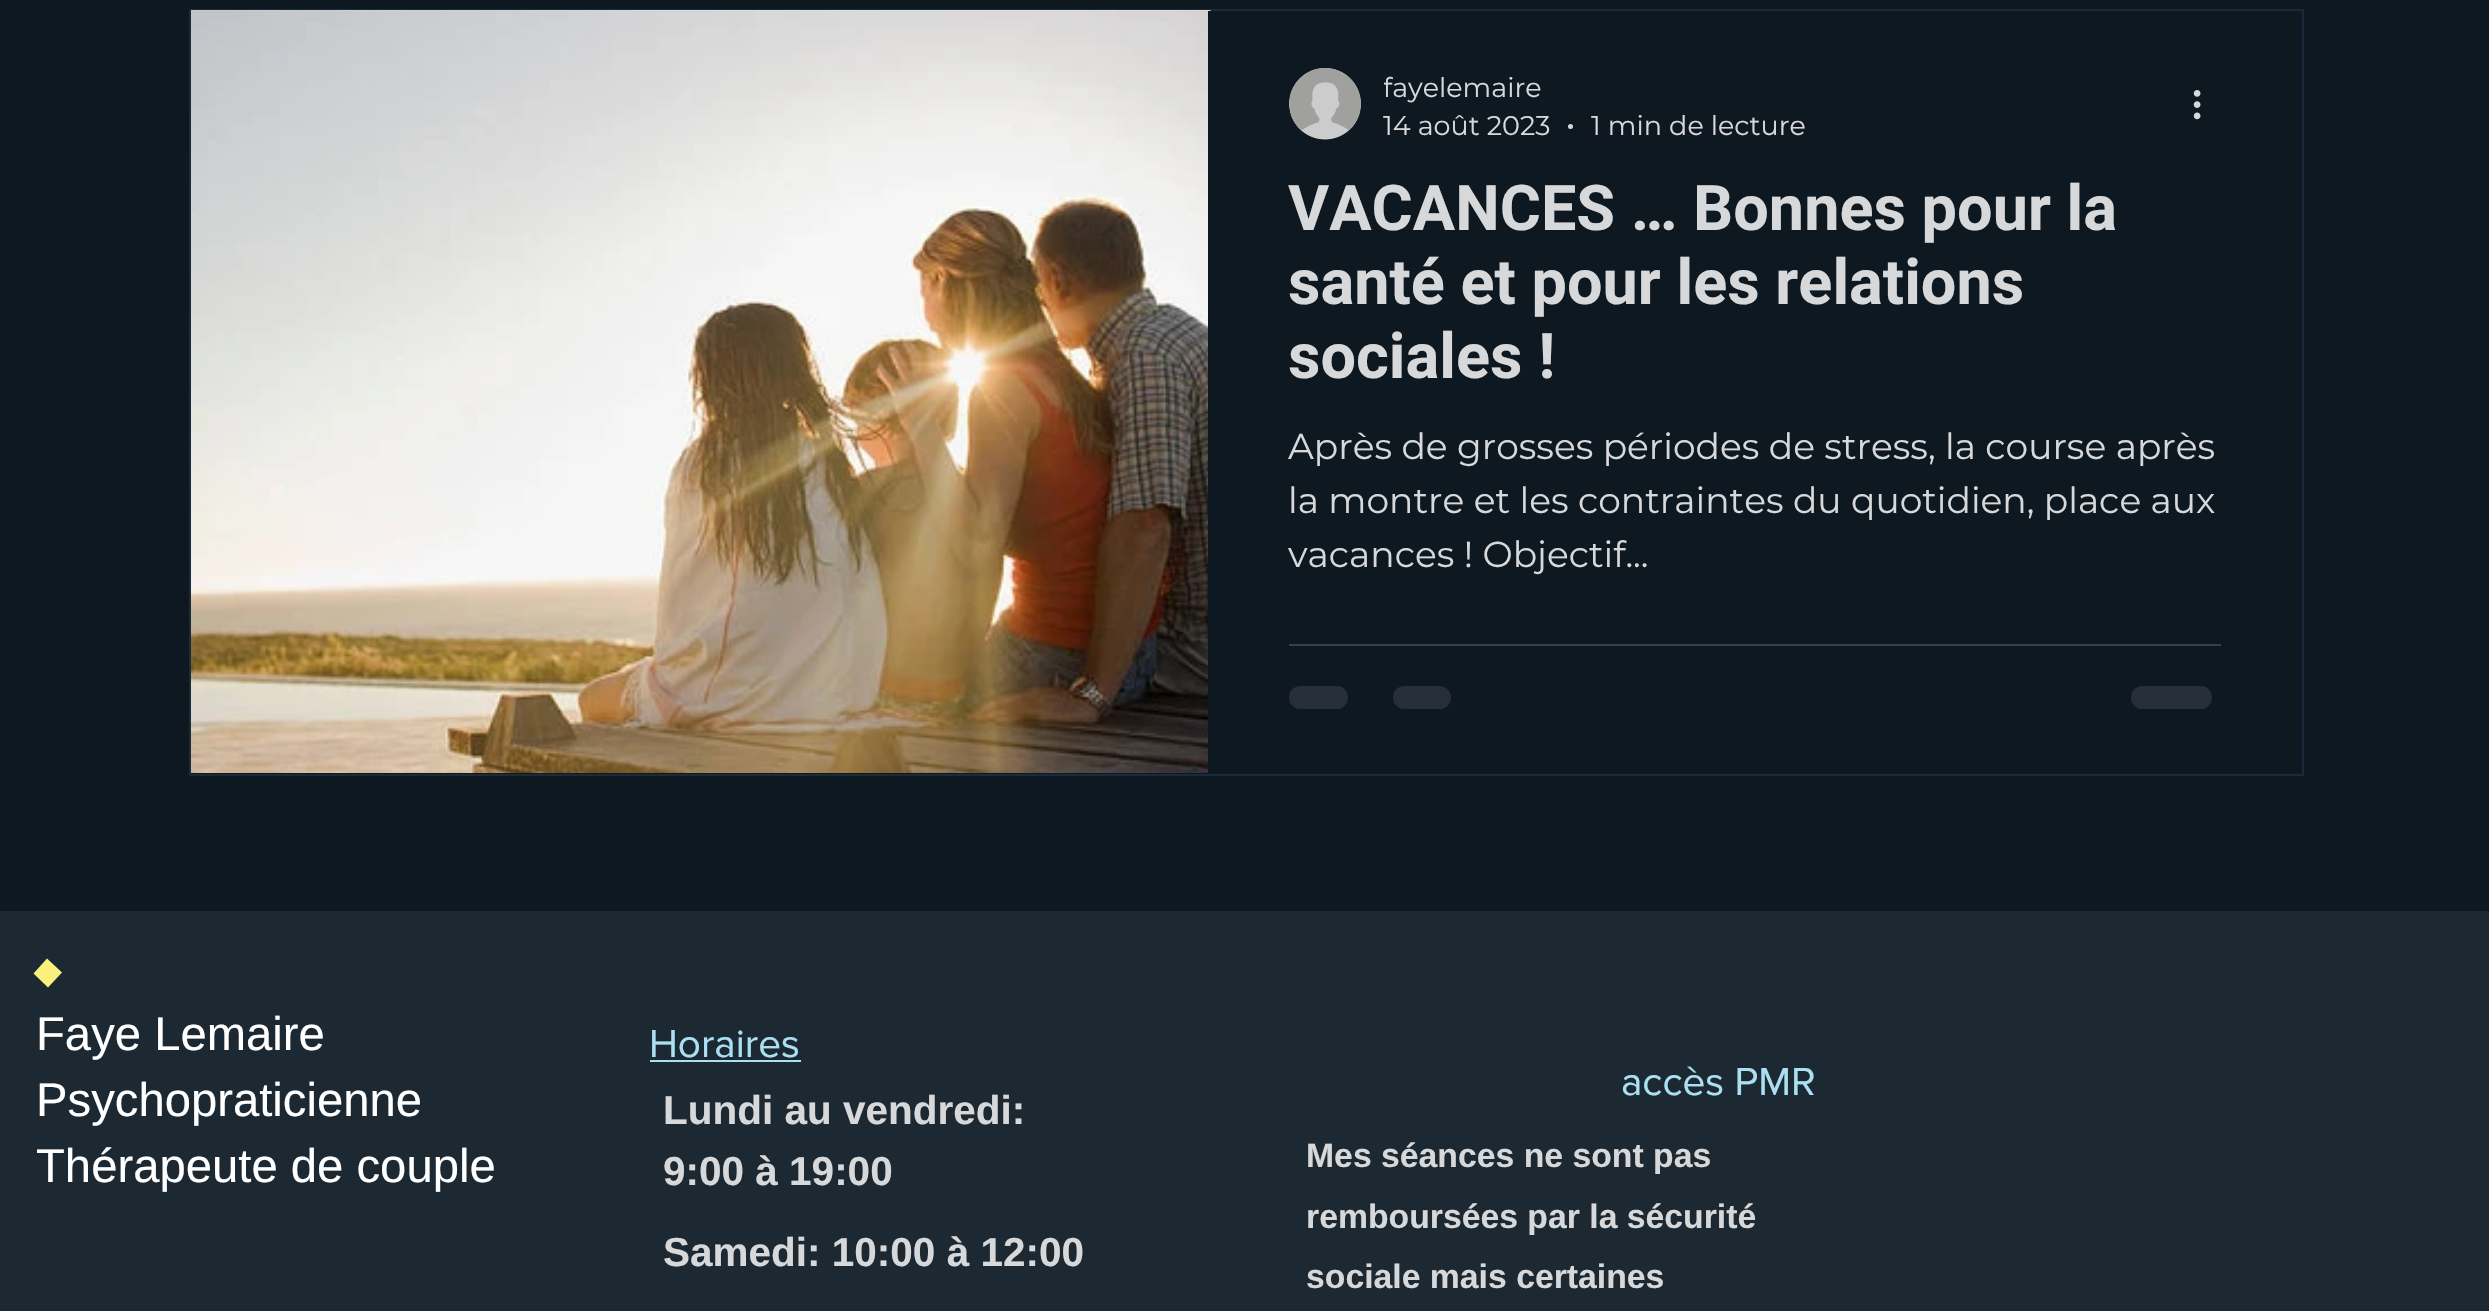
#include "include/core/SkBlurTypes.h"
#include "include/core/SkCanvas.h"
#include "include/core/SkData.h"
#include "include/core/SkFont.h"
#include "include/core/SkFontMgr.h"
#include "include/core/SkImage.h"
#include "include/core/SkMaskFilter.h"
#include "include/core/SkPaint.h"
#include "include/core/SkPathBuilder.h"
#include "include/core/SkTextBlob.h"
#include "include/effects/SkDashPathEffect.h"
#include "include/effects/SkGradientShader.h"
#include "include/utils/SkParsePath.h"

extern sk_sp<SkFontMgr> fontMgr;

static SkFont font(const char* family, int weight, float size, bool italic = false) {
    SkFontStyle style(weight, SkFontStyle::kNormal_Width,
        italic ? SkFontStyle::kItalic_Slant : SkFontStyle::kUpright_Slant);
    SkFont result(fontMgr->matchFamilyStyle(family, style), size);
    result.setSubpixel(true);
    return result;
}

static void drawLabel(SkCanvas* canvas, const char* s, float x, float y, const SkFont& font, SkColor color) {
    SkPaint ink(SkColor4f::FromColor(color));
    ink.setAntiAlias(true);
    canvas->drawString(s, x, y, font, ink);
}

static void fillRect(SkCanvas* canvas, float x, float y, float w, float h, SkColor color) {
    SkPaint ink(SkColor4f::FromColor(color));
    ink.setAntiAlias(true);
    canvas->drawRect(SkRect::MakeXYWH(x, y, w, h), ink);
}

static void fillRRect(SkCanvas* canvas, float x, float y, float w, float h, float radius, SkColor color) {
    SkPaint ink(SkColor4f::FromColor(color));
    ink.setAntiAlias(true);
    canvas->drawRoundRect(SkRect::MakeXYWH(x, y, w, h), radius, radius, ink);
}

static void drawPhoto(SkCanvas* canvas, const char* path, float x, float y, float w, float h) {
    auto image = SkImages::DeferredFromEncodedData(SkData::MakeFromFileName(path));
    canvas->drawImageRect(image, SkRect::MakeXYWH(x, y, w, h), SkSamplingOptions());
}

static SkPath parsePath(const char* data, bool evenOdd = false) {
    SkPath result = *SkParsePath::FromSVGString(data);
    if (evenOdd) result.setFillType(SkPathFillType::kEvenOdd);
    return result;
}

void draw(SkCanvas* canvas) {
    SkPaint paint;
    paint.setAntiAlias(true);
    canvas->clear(0xFF0E1821);
    paint.setStroke(true);
    paint.setStrokeWidth(2);
    paint.setColor(0xFF192B3A);
    canvas->drawRect(SkRect::MakeXYWH(190, 10, 2113, 765), paint);
    drawPhoto(canvas, "assets/img1.png", 191, 10, 1020, 1);
    drawPhoto(canvas, "assets/img2.png", 191, 11, 1017, 762);
    drawPhoto(canvas, "assets/img3.png", 1289, 68, 72, 72);
    canvas->save();
    canvas->clipRect(SkRect::MakeXYWH(1384, 70, 157, 34));
    SkFont font1 = font("Montserrat", 400, 27);
    drawLabel(canvas, "fayelemaire", 1383, 97, font1, 0xFFD7D8D9);
    canvas->restore();
    drawLabel(canvas, "14 août 2023", 1383, 135, font1, 0xFFD7D8D9);
    paint.setStroke(false);
    paint.setColor(0xFFD7D8D9);
    canvas->drawCircle(1570.5f, 126.5f, 2.5f, paint);
    drawLabel(canvas, "1 min de lecture", 1591, 135, font1, 0xFFD7D8D9);
    drawPhoto(canvas, "assets/img4.png", 2193, 90, 8, 30);
    SkFont font2 = font("Roboto", 700, 63);
    drawLabel(canvas, "VACANCES … Bonnes pour la", 1288, 230, font2, 0xFFD7D8D9);
    drawLabel(canvas, "santé et pour les relations", 1288, 304, font2, 0xFFD7D8D9);
    drawLabel(canvas, "sociales !", 1288, 378, font2, 0xFFD7D8D9);
    SkFont font3 = font("Montserrat", 400, 36);
    drawLabel(canvas, "Après de grosses périodes de stress, la course après", 1288, 459, font3, 0xFFD7D8D9);
    drawLabel(canvas, "la montre et les contraintes du quotidien, place aux", 1288, 513, font3, 0xFFD7D8D9);
    drawLabel(canvas, "vacances ! Objectif...", 1288, 567, font3, 0xFFD7D8D9);
    fillRect(canvas, 1289, 644, 932, 2, 0xFF363E46);
    fillRRect(canvas, 1289, 686, 59, 23, 11.5f, 0xFF262F37);
    fillRRect(canvas, 1393, 686, 58, 23, 11.5f, 0xFF262F37);
    fillRRect(canvas, 2131, 686, 81, 23, 11.5f, 0xFF262F37);
    fillRect(canvas, 0, 911, 2489, 400, 0xFF1D2932);
    paint.setColor(0xFFFAF17C);
    canvas->drawPath(parsePath("M62 972.5L48 987.5L33.5 973.5L47 958.5Z"), paint);
    SkFont font4 = font("Liberation Sans", 400, 47.25f);
    drawLabel(canvas, "Faye Lemaire", 36, 1050, font4, 0xFFFFFFFF);
    drawLabel(canvas, "Psychopraticienne", 36, 1116, font4, 0xFFFFFFFF);
    drawLabel(canvas, "Thérapeute de couple", 36, 1182, font4, 0xFFFFFFFF);
    SkFont font5 = font("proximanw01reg", 400, 40.5f);
    drawLabel(canvas, "Horaires", 649, 1057, font5, 0xFFABE0F2);
    fillRect(canvas, 650, 1060, 151, 2, 0xFFABE0F2);
    SkFont font6 = font("Liberation Sans", 700, 40.5f);
    drawLabel(canvas, "Lundi au vendredi:", 663, 1124, font6, 0xFFD7D8D9);
    drawLabel(canvas, "9:00 à 19:00", 663, 1185, font6, 0xFFD7D8D9);
    drawLabel(canvas, "Samedi: 10:00 à 12:00", 663, 1266, font6, 0xFFD7D8D9);
    drawLabel(canvas, "accès PMR", 1621, 1095, font5, 0xFFABE0F2);
    SkFont font7 = font("Liberation Sans", 700, 33.75f);
    drawLabel(canvas, "Mes séances ne sont pas", 1306, 1167, font7, 0xFFD7D8D9);
    drawLabel(canvas, "remboursées par la sécurité", 1306, 1228, font7, 0xFFD7D8D9);
    drawLabel(canvas, "sociale mais certaines", 1306, 1288, font7, 0xFFD7D8D9);
}
